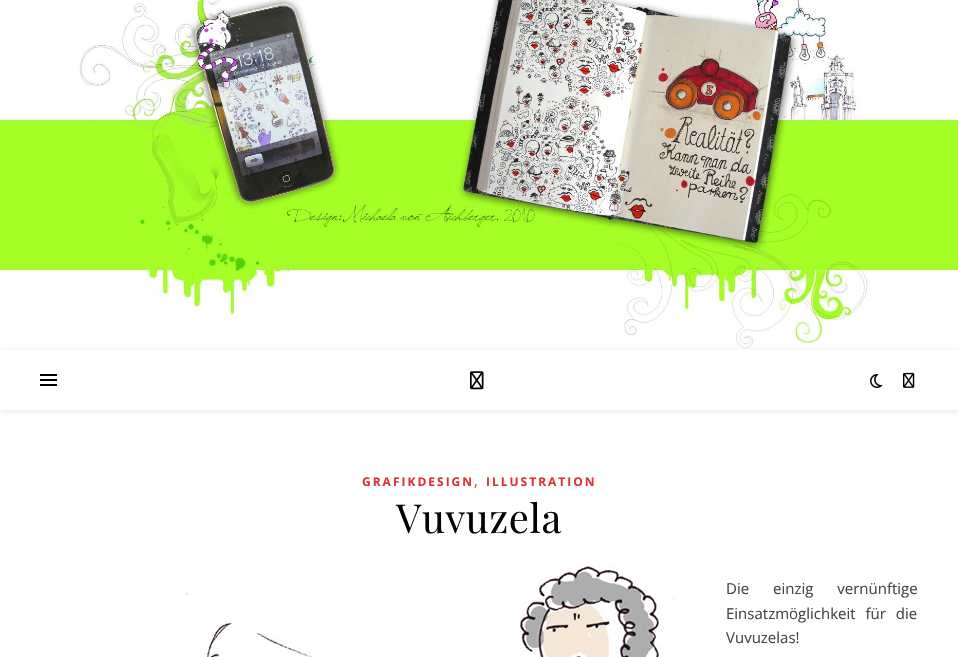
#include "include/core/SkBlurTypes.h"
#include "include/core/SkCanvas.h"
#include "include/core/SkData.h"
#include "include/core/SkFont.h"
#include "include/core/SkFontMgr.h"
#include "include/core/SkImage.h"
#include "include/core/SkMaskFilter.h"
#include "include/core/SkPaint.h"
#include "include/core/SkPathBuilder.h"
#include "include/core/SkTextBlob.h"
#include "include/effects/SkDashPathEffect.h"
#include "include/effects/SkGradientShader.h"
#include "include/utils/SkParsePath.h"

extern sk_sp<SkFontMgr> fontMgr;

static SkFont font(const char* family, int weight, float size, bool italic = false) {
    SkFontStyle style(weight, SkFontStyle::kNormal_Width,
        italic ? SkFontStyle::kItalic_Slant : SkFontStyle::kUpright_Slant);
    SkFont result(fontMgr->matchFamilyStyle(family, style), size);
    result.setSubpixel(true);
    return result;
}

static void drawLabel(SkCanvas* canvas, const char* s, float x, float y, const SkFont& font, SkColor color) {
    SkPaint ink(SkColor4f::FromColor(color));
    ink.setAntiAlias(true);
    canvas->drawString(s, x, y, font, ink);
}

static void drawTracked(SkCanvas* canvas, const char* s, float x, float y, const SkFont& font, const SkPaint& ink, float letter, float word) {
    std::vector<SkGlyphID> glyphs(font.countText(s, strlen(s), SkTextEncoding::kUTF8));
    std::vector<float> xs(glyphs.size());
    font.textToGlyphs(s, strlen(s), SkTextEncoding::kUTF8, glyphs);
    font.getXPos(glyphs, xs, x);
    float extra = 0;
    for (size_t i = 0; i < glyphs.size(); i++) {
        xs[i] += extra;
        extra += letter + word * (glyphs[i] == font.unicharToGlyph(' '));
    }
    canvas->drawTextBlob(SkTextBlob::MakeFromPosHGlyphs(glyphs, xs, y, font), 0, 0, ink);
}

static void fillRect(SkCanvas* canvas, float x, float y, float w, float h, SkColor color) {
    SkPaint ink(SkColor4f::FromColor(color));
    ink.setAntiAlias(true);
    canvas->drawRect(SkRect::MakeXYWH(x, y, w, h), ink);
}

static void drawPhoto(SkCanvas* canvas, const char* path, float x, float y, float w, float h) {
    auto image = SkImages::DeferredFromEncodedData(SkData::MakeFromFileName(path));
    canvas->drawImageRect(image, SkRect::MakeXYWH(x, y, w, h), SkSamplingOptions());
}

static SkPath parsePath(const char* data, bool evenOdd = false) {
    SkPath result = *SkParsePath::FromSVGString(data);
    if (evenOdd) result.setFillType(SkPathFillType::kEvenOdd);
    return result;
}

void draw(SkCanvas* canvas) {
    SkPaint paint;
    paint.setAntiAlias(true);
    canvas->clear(0xFFFFFFFF);
    drawPhoto(canvas, "assets/img1.png", 0, 0, 958, 349);
    canvas->save();
    canvas->clipPath(parsePath("M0 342H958V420H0ZM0 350H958V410H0Z", true), true);
    paint.setColor(0x1A000000);
    paint.setMaskFilter(SkMaskFilter::MakeBlur(kNormal_SkBlurStyle, 2.5f));
    canvas->drawRect(SkRect::MakeXYWH(0, 351, 958, 60), paint);
    paint.setMaskFilter(nullptr);
    canvas->restore();
    fillRect(canvas, 40, 374, 17, 2, 0xFF000000);
    fillRect(canvas, 40, 379, 17, 2, 0xFF000000);
    fillRect(canvas, 40, 384, 17, 2, 0xFF000000);
    drawPhoto(canvas, "assets/img2.png", 470, 371, 14, 19);
    drawPhoto(canvas, "assets/img3.png", 870, 374, 13, 14);
    drawPhoto(canvas, "assets/img4.png", 903, 372, 12, 16);
    SkFont font1 = font("Open Sans", 700, 12);
    paint.setColor(0xFFDD3333);
    drawTracked(canvas, "GRAFIKDESIGN", 362, 486, font1, paint, 2, 0);
    SkFont font2 = font("Open Sans", 400, 15);
    drawLabel(canvas, ",", 474, 486, font2, 0xFFDD3333);
    drawTracked(canvas, "ILLUSTRATION", 486, 486, font1, paint, 2, 0);
    SkFont font3 = font("Playfair Display", 400, 40);
    paint.setColor(0xFF030303);
    drawTracked(canvas, "Vuvuzela", 396, 533, font3, paint, 0.5f, 0);
    drawPhoto(canvas, "assets/img5.png", 185, 565, 490, 92);
    paint.setColor(0xFF464646);
    drawTracked(canvas, "Die einzig vernünftige", 726, 594, font2, paint, 0, 20);
    drawTracked(canvas, "Einsatzmöglichkeit für die", 726, 619, font2, paint, 0, 6);
    drawLabel(canvas, "Vuvuzelas!", 726, 643, font2, 0xFF464646);
}
